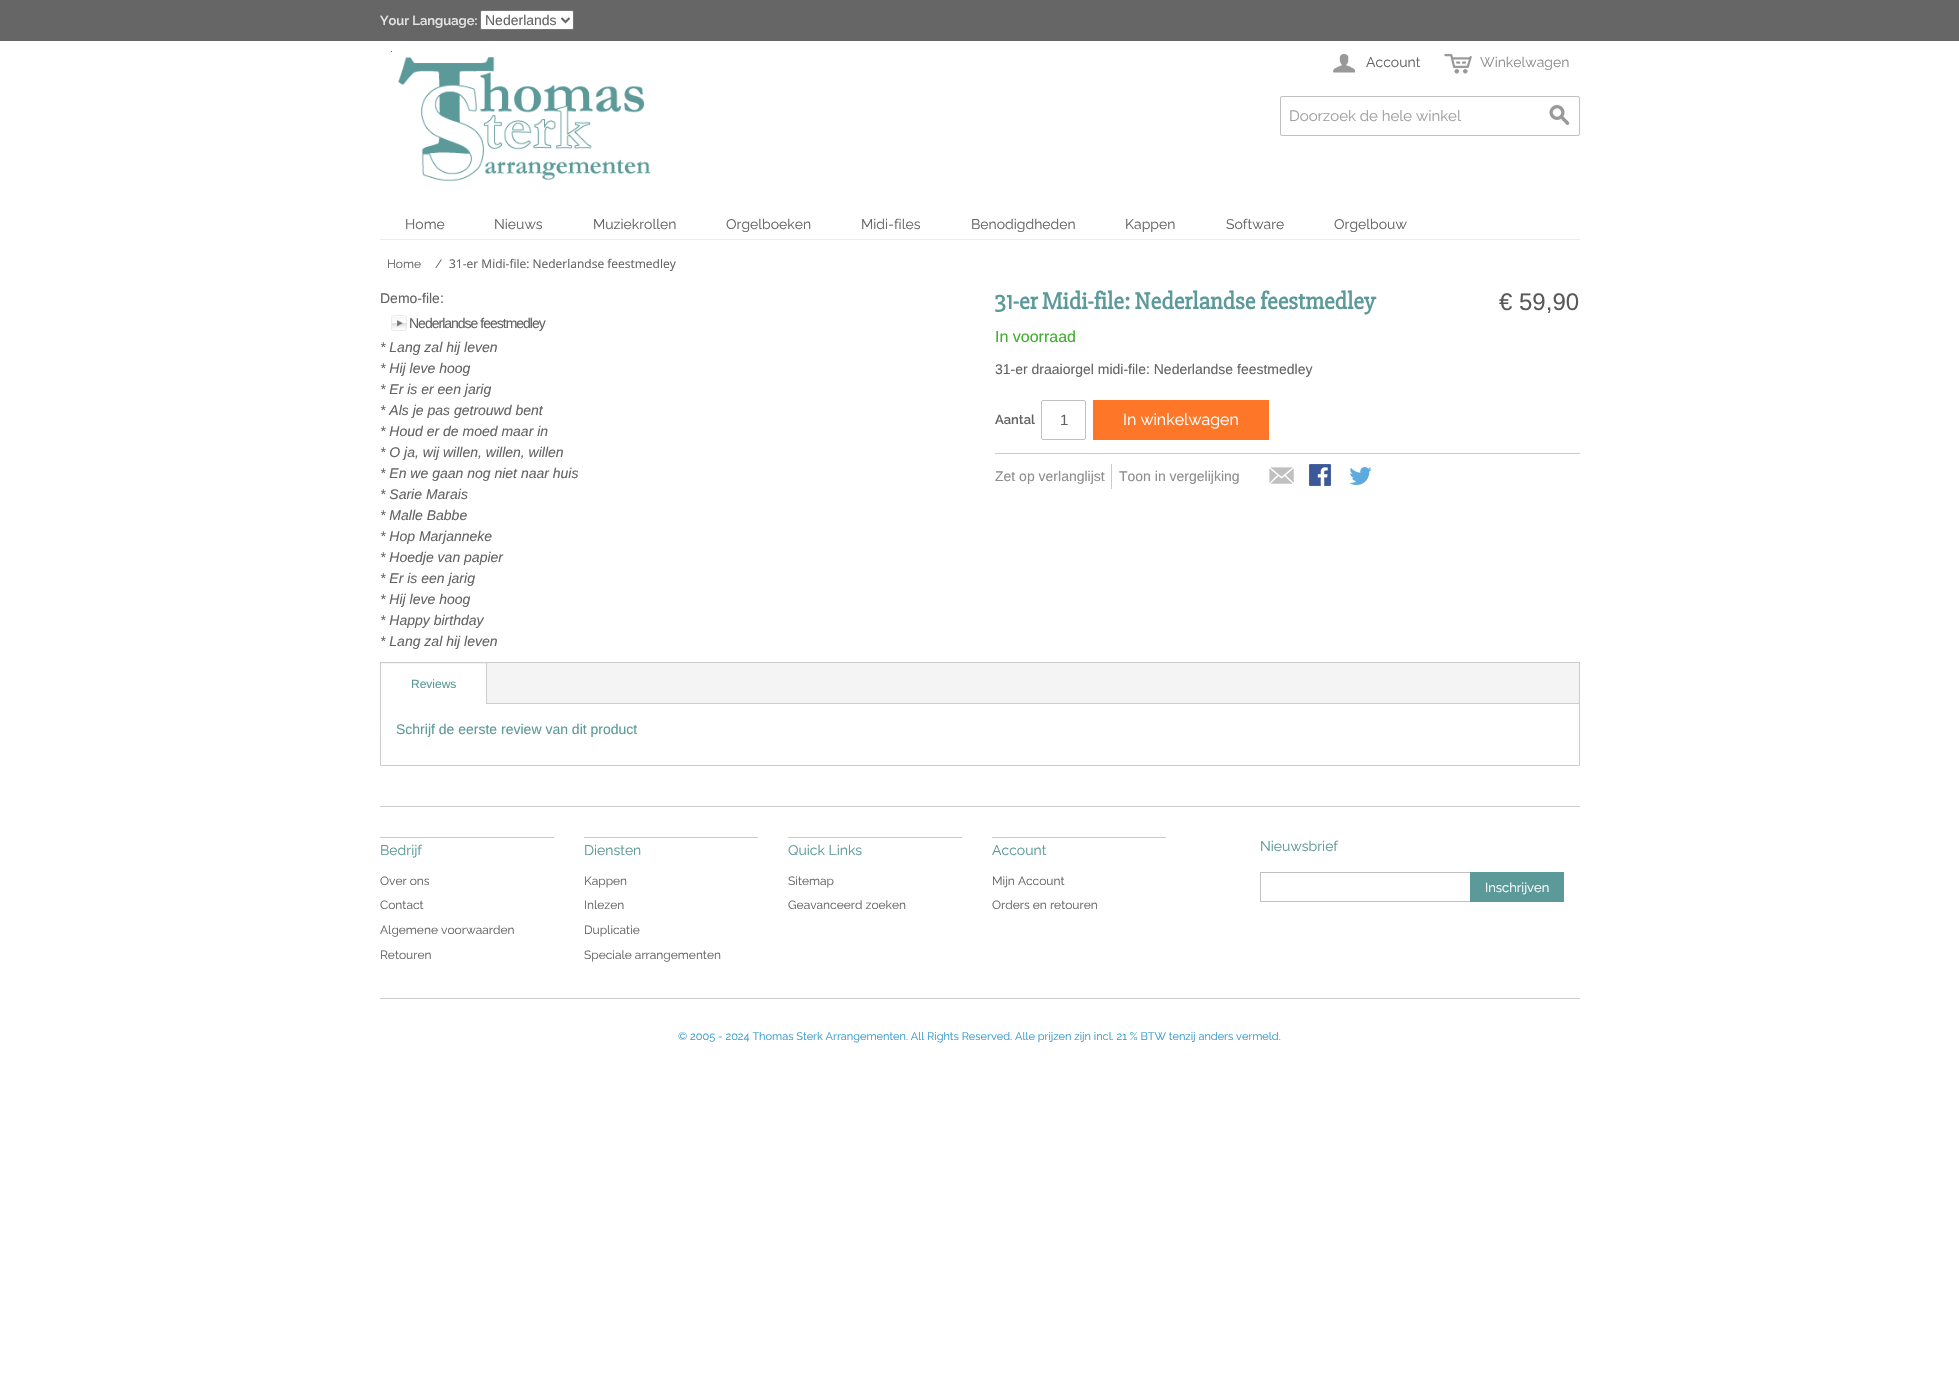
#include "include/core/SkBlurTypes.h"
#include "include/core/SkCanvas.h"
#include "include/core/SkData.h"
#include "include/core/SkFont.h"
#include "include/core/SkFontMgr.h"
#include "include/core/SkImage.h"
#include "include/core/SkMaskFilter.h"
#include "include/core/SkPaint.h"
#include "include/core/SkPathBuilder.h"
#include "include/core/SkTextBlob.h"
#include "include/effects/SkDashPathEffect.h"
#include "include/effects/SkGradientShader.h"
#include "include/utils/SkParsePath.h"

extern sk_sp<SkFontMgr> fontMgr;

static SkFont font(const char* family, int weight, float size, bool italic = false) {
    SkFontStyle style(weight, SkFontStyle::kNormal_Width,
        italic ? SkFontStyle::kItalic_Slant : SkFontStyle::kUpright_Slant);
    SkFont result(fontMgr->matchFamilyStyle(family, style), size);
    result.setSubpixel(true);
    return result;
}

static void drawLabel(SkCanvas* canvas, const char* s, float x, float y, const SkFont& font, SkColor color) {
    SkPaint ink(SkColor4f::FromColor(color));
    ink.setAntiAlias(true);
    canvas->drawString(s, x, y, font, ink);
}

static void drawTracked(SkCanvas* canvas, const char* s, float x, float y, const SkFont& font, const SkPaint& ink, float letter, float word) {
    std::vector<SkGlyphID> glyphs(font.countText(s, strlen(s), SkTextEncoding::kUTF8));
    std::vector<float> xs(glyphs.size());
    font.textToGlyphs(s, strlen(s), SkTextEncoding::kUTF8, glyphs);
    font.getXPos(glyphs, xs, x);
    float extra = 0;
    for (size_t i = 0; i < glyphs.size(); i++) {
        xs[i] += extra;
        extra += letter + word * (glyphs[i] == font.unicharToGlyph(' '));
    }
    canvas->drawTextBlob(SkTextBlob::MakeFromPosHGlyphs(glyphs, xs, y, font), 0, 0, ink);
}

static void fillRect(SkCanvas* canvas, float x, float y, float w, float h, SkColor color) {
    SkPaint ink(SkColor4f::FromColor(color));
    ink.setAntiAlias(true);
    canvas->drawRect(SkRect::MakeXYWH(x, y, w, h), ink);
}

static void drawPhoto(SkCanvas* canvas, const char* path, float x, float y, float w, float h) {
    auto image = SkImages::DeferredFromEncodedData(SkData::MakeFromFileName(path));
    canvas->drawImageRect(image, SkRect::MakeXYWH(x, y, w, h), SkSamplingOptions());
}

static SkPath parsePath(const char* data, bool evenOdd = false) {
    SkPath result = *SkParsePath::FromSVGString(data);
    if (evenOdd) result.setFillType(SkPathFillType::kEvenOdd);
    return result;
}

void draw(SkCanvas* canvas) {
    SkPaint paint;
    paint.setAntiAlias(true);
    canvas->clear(0xFFFFFFFF);
    fillRect(canvas, 0, 0, 1959, 41, 0xFF666666);
    SkFont font1 = font("Raleway", 600, 13);
    drawLabel(canvas, "Your Language:", 380, 25, font1, 0xFFE6E6E6);
    paint.setColor(0xFFFFFFFF);
    canvas->drawRoundRect(SkRect::MakeXYWH(480.5f, 10.5f, 93, 19), 1.5f, 1.5f, paint);
    paint.setStroke(true);
    paint.setStrokeWidth(1);
    paint.setColor(0xFF767676);
    canvas->drawRoundRect(SkRect::MakeXYWH(480.5f, 10.5f, 93, 19), 1.5f, 1.5f, paint);
    paint.setStrokeWidth(2);
    paint.setColor(0xFF636363);
    canvas->drawPath(parsePath("M561.5 18L565.5 22L569.5 18"), paint);
    SkFont font2 = font("Liberation Sans", 400, 14);
    drawLabel(canvas, "Nederlands", 485, 25, font2, 0xFF636363);
    drawPhoto(canvas, "assets/img1.png", 390, 51, 261, 130);
    drawPhoto(canvas, "assets/img2.png", 1333, 53, 23, 20);
    SkFont font3 = font("Raleway", 400, 14);
    drawLabel(canvas, "Account", 1366, 67, font3, 0xFF636363);
    drawPhoto(canvas, "assets/img3.png", 1444, 53, 28, 21);
    drawLabel(canvas, "Winkelwagen", 1480, 67, font3, 0xFF8E8E8E);
    paint.setStrokeWidth(1);
    paint.setColor(0xFFC0C0C0);
    canvas->drawRoundRect(SkRect::MakeXYWH(1280.5f, 96.5f, 299, 39), 1.5f, 1.5f, paint);
    SkFont font4 = font("Raleway", 400, 15);
    drawLabel(canvas, "Doorzoek de hele winkel", 1289, 121, font4, 0xFFA0A0A0);
    drawPhoto(canvas, "assets/img4.png", 1549, 104, 21, 22);
    fillRect(canvas, 380, 239, 1200, 1, 0xFFEDEDED);
    drawLabel(canvas, "Home", 405, 229, font3, 0xFF636363);
    drawLabel(canvas, "Nieuws", 494, 229, font3, 0xFF636363);
    drawLabel(canvas, "Muziekrollen", 593, 229, font3, 0xFF636363);
    drawLabel(canvas, "Orgelboeken", 726, 229, font3, 0xFF636363);
    drawLabel(canvas, "Midi-files", 861, 229, font3, 0xFF636363);
    drawLabel(canvas, "Benodigdheden", 971, 229, font3, 0xFF636363);
    drawLabel(canvas, "Kappen", 1125, 229, font3, 0xFF636363);
    drawLabel(canvas, "Software", 1226, 229, font3, 0xFF636363);
    drawLabel(canvas, "Orgelbouw", 1334, 229, font3, 0xFF636363);
    SkFont font5 = font("Raleway", 400, 12);
    drawLabel(canvas, "Home", 387, 268, font5, 0xFF636363);
    drawLabel(canvas, "/", 435, 268, font5, 0xFF636363);
    SkFont font6 = font("Open Sans", 400, 12);
    drawLabel(canvas, "31-er Midi-file: Nederlandse feestmedley", 449, 268, font6, 0xFF636363);
    drawLabel(canvas, "Demo-file:", 380, 303, font2, 0xFF636363);
    drawPhoto(canvas, "assets/img5.png", 391, 315, 16, 16);
    paint.setStroke(false);
    paint.setColor(0xFF636363);
    drawTracked(canvas, "Nederlandse feestmedley", 409, 328, font2, paint, -1, 0);
    SkFont font7 = font("Liberation Sans", 400, 14, true);
    drawLabel(canvas, "* Lang zal hij leven", 380, 352, font7, 0xFF636363);
    drawLabel(canvas, "* Hij leve hoog", 380, 373, font7, 0xFF636363);
    drawLabel(canvas, "* Er is er een jarig", 380, 394, font7, 0xFF636363);
    drawLabel(canvas, "* Als je pas getrouwd bent", 380, 415, font7, 0xFF636363);
    drawLabel(canvas, "* Houd er de moed maar in", 380, 436, font7, 0xFF636363);
    drawLabel(canvas, "* O ja, wij willen, willen, willen", 380, 457, font7, 0xFF636363);
    drawLabel(canvas, "* En we gaan nog niet naar huis", 380, 478, font7, 0xFF636363);
    drawLabel(canvas, "* Sarie Marais", 380, 499, font7, 0xFF636363);
    drawLabel(canvas, "* Malle Babbe", 380, 520, font7, 0xFF636363);
    drawLabel(canvas, "* Hop Marjanneke", 380, 541, font7, 0xFF636363);
    drawLabel(canvas, "* Hoedje van papier", 380, 562, font7, 0xFF636363);
    drawLabel(canvas, "* Er is een jarig", 380, 583, font7, 0xFF636363);
    drawLabel(canvas, "* Hij leve hoog", 380, 604, font7, 0xFF636363);
    drawLabel(canvas, "* Happy birthday", 380, 625, font7, 0xFF636363);
    drawLabel(canvas, "* Lang zal hij leven", 380, 646, font7, 0xFF636363);
    SkFont font8 = font("Slabo 27px", 700, 24);
    drawLabel(canvas, "31-er Midi-file: Nederlandse feestmedley", 995, 309, font8, 0xFF5C9999);
    SkFont font9 = font("Liberation Sans", 400, 24);
    drawLabel(canvas, "€ 59,90", 1499, 310, font9, 0xFF595959);
    SkFont font10 = font("Liberation Sans", 400, 16);
    drawLabel(canvas, "In voorraad", 995, 342, font10, 0xFF3EAF2C);
    drawLabel(canvas, "31-er draaiorgel midi-file: Nederlandse feestmedley", 995, 374, font2, 0xFF636363);
    fillRect(canvas, 995, 453, 585, 1, 0xFFCCCCCC);
    drawLabel(canvas, "Aantal", 995, 424, font1, 0xFF636363);
    paint.setStroke(true);
    paint.setColor(0xFFC0C0C0);
    canvas->drawRoundRect(SkRect::MakeXYWH(1041.5f, 400.5f, 44, 39), 1.5f, 1.5f, paint);
    SkFont font11 = font("Liberation Sans", 400, 15);
    drawLabel(canvas, "1", 1060, 425, font11, 0xFF636363);
    fillRect(canvas, 1093, 400, 176, 40, 0xFFFE7628);
    SkFont font12 = font("Raleway", 400, 16);
    drawLabel(canvas, "In winkelwagen", 1123, 425, font12, 0xFFFFFFFF);
    fillRect(canvas, 1111, 464, 1, 25, 0xFFCCCCCC);
    drawLabel(canvas, "Zet op verlanglijst", 995, 481, font2, 0xFF8E8E8E);
    drawLabel(canvas, "Toon in vergelijking", 1119, 481, font2, 0xFF8E8E8E);
    drawPhoto(canvas, "assets/img6.png", 1269, 467, 25, 17);
    drawPhoto(canvas, "assets/img7.png", 1309, 464, 23, 23);
    drawPhoto(canvas, "assets/img8.png", 1349, 466, 23, 20);
    paint.setStroke(false);
    paint.setColor(0xFFF4F4F4);
    canvas->drawRect(SkRect::MakeXYWH(380.5f, 662.5f, 1199, 41), paint);
    paint.setStroke(true);
    paint.setColor(0xFFCCCCCC);
    canvas->drawRect(SkRect::MakeXYWH(380.5f, 662.5f, 1199, 41), paint);
    fillRect(canvas, 486, 663, 1, 40, 0xFFCCCCCC);
    fillRect(canvas, 381, 664, 105, 40, 0xFFFFFFFF);
    SkFont font13 = font("Liberation Sans", 400, 12);
    drawLabel(canvas, "Reviews", 411, 688, font13, 0xFF5C9999);
    fillRect(canvas, 1579, 704, 1, 62, 0xFFCCCCCC);
    fillRect(canvas, 380, 765, 1200, 1, 0xFFCCCCCC);
    fillRect(canvas, 380, 704, 1, 62, 0xFFCCCCCC);
    drawLabel(canvas, "Schrijf de eerste review van dit product", 396, 734, font2, 0xFF5C9999);
    fillRect(canvas, 380, 806, 1200, 1, 0xFFCCCCCC);
    fillRect(canvas, 380, 837, 174, 1, 0xFFCCCCCC);
    drawLabel(canvas, "Bedrijf", 380, 855, font3, 0xFF5C9999);
    drawLabel(canvas, "Over ons", 380, 885, font5, 0xFF636363);
    drawLabel(canvas, "Contact", 380, 909, font5, 0xFF636363);
    drawLabel(canvas, "Algemene voorwaarden", 380, 934, font5, 0xFF636363);
    drawLabel(canvas, "Retouren", 380, 959, font5, 0xFF636363);
    fillRect(canvas, 584, 837, 174, 1, 0xFFCCCCCC);
    drawLabel(canvas, "Diensten", 584, 855, font3, 0xFF5C9999);
    drawLabel(canvas, "Kappen", 584, 885, font5, 0xFF636363);
    drawLabel(canvas, "Inlezen", 584, 909, font5, 0xFF636363);
    drawLabel(canvas, "Duplicatie", 584, 934, font5, 0xFF636363);
    drawLabel(canvas, "Speciale arrangementen", 584, 959, font5, 0xFF636363);
    fillRect(canvas, 788, 837, 174, 1, 0xFFCCCCCC);
    drawLabel(canvas, "Quick Links", 788, 855, font3, 0xFF5C9999);
    drawLabel(canvas, "Sitemap", 788, 885, font5, 0xFF636363);
    drawLabel(canvas, "Geavanceerd zoeken", 788, 909, font5, 0xFF636363);
    fillRect(canvas, 992, 837, 174, 1, 0xFFCCCCCC);
    drawLabel(canvas, "Account", 992, 855, font3, 0xFF5C9999);
    drawLabel(canvas, "Mijn Account", 992, 885, font5, 0xFF636363);
    drawLabel(canvas, "Orders en retouren", 992, 909, font5, 0xFF636363);
    drawLabel(canvas, "Nieuwsbrief", 1260, 851, font3, 0xFF5C9999);
    fillRect(canvas, 1260, 872, 210, 1, 0xFFC0C0C0);
    fillRect(canvas, 1260, 901, 210, 1, 0xFFC0C0C0);
    fillRect(canvas, 1260, 872, 1, 30, 0xFFC0C0C0);
    fillRect(canvas, 1470, 872, 94, 30, 0xFF5C9999);
    SkFont font14 = font("Raleway", 400, 13);
    drawLabel(canvas, "Inschrijven", 1485, 892, font14, 0xFFFFFFFF);
    fillRect(canvas, 380, 998, 1200, 1, 0xFFCCCCCC);
    SkFont font15 = font("Raleway", 400, 11);
    drawLabel(canvas, "© 2005 - 2024 Thomas Sterk Arrangementen. All Rights Reserved. Alle prijzen zijn incl. 21 % BTW tenzij anders vermeld.", 678, 1040, font15, 0xFF3399CC);
}
